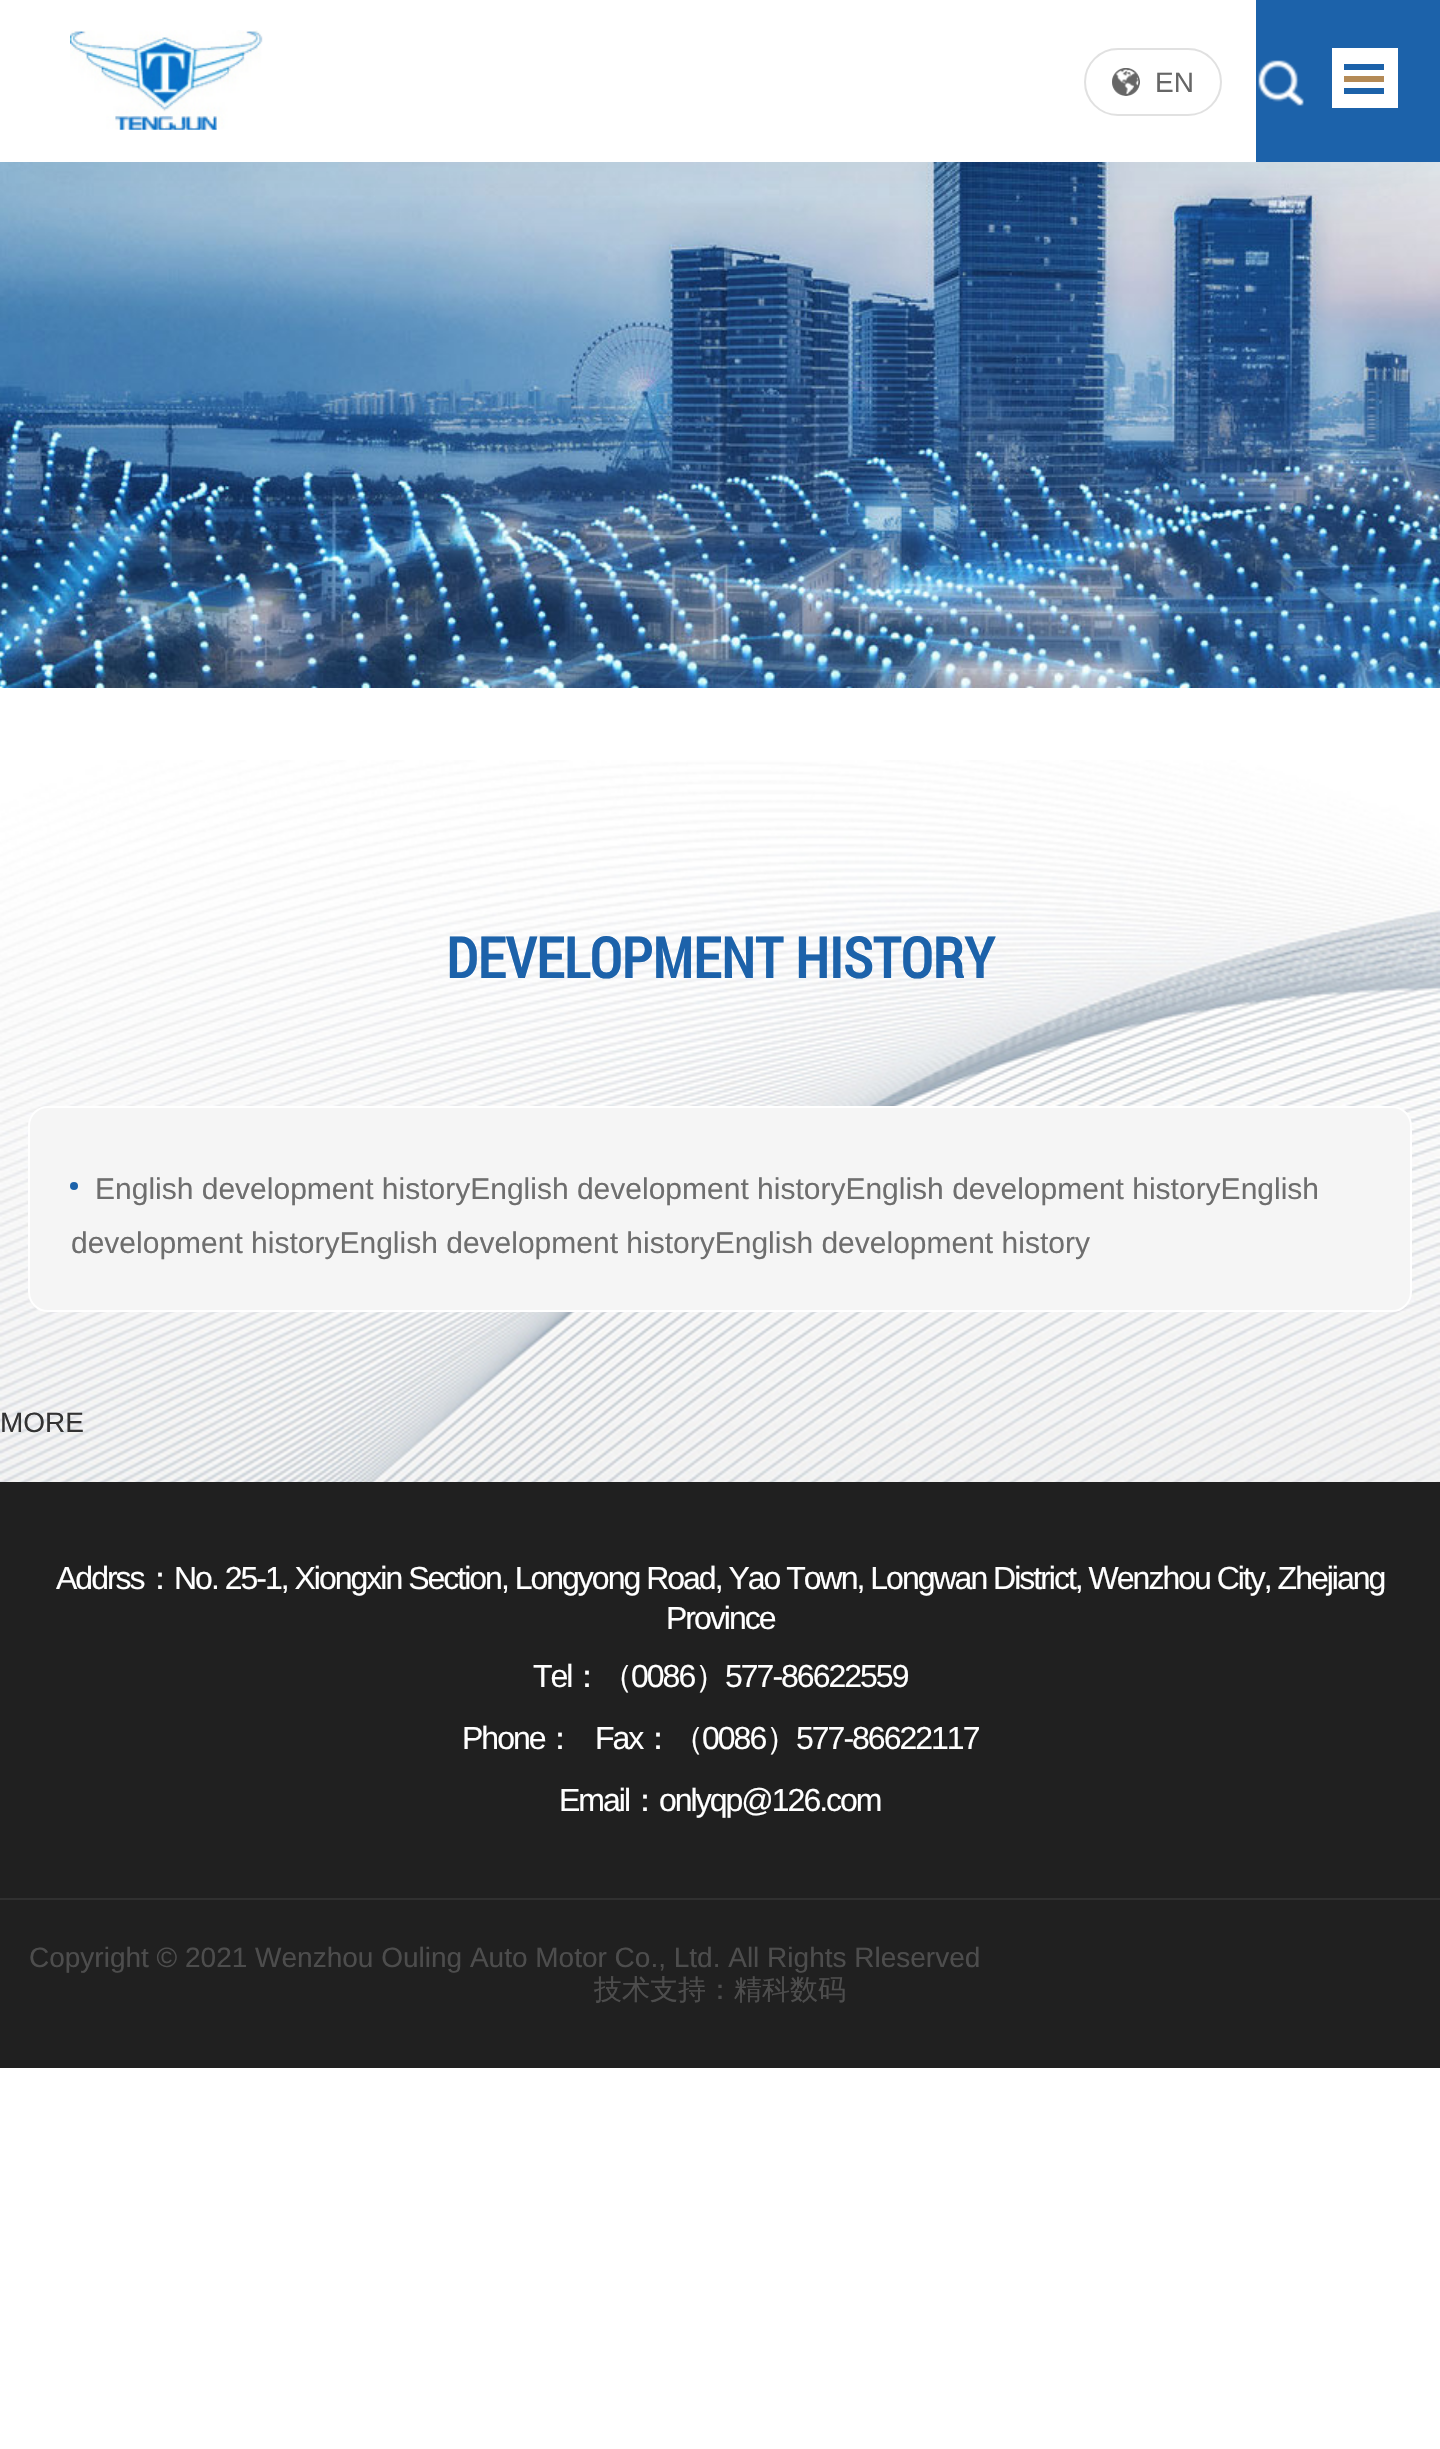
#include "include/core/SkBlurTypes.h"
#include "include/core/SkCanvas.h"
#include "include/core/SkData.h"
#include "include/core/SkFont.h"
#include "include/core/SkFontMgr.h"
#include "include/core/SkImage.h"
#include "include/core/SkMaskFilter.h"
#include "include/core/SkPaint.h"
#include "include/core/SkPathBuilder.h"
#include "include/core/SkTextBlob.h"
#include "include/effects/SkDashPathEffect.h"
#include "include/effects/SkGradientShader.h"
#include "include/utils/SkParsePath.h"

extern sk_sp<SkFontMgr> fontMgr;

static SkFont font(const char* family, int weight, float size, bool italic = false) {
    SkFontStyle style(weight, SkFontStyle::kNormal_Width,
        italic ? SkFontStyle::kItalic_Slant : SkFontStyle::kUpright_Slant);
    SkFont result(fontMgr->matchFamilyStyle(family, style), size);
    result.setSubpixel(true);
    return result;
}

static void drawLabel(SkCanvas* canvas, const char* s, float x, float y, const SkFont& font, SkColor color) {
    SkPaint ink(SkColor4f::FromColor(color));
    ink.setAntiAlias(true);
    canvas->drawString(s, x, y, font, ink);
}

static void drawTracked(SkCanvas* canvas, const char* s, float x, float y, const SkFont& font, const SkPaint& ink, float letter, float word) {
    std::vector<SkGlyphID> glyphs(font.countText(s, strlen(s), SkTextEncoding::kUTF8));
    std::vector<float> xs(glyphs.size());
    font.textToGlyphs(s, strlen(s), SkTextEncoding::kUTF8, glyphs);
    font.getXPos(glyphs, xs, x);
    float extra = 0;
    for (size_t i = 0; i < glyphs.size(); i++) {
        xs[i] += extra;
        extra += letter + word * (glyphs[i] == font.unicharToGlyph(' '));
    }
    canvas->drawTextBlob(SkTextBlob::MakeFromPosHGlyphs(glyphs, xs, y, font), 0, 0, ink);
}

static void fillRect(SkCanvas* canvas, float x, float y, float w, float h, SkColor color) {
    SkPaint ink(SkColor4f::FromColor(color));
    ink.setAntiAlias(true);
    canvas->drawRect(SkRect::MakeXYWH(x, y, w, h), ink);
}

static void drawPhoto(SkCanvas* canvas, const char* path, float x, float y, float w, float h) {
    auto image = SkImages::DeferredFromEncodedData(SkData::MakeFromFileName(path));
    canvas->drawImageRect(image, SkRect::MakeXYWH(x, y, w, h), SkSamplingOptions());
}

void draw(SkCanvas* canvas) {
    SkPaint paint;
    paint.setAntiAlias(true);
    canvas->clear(0xFFFFFFFF);
    drawPhoto(canvas, "assets/img4.png", 0, 162, 1440, 526);
    paint.setColor(0x14003C3C);
    paint.setMaskFilter(SkMaskFilter::MakeBlur(kNormal_SkBlurStyle, 50));
    canvas->drawRect(SkRect::MakeXYWH(0, 0, 1440, 162), paint);
    paint.setMaskFilter(nullptr);
    fillRect(canvas, 0, 0, 1256, 162, 0xFFFFFFFF);
    drawPhoto(canvas, "assets/img1.png", 70, 30, 193, 100);
    drawPhoto(canvas, "assets/img2.png", 1112, 68, 28, 28);
    paint.setStroke(true);
    paint.setStrokeWidth(2);
    paint.setColor(0xFFE1E1E1);
    canvas->drawRoundRect(SkRect::MakeXYWH(1085, 49, 136, 66), 33, 33, paint);
    SkFont font1 = font("Liberation Sans", 400, 28);
    drawLabel(canvas, "EN", 1155, 92, font1, 0xFF666666);
    fillRect(canvas, 1256, 0, 184, 162, 0xFF1C62AA);
    drawPhoto(canvas, "assets/img3.png", 1258, 60, 46, 46);
    fillRect(canvas, 1332, 48, 66, 60, 0xFFFFFFFF);
    fillRect(canvas, 1344, 76, 40, 6, 0xFFB48A56);
    fillRect(canvas, 1344, 64, 40, 6, 0xFF1C62AA);
    fillRect(canvas, 1344, 88, 40, 6, 0xFF1C62AA);
    drawPhoto(canvas, "assets/img5.png", 0, 760, 1440, 722);
    SkFont font2 = font("Roboto Condensed", 700, 56);
    drawLabel(canvas, "DEVELOPMENT HISTORY", 446, 978, font2, 0xFF1C62AA);
    paint.setStroke(false);
    paint.setColor(0xFFF5F5F5);
    canvas->drawRoundRect(SkRect::MakeXYWH(29, 1107, 1382, 204), 19, 19, paint);
    paint.setStroke(true);
    paint.setColor(0xFFFFFFFF);
    canvas->drawRoundRect(SkRect::MakeXYWH(29, 1107, 1382, 204), 19, 19, paint);
    paint.setStroke(false);
    paint.setColor(0xFF1C62AA);
    canvas->drawCircle(74, 1186, 4, paint);
    SkFont font3 = font("Liberation Sans", 400, 30);
    drawLabel(canvas, "English development historyEnglish development historyEnglish development historyEnglish", 95, 1199, font3, 0xFF6E6E6E);
    drawLabel(canvas, "development historyEnglish development historyEnglish development history", 71, 1253, font3, 0xFF6E6E6E);
    drawLabel(canvas, "MORE", 0, 1432, font1, 0xFF333333);
    fillRect(canvas, 0, 1482, 1440, 586, 0xFF202020);
    SkFont font4 = font("Liberation Sans", 400, 32);
    paint.setColor(0xFFFFFFFF);
    drawTracked(canvas, "Addrss", 56, 1589, font4, paint, -2, 0);
    SkFont font5 = font("WenQuanYi Zen Hei", 500, 32);
    drawTracked(canvas, "：", 144, 1589, font5, paint, -2, 0);
    drawTracked(canvas, "No. 25-1, Xiongxin Section, Longyong Road, Yao Town, Longwan District, Wenzhou City, Zhejiang", 174, 1589, font4, paint, -2, 0);
    drawTracked(canvas, "Province", 666, 1629, font4, paint, -2, 0);
    drawTracked(canvas, "Tel", 533, 1687, font4, paint, -2, 0);
    drawTracked(canvas, "：（", 571, 1687, font5, paint, -2, 0);
    drawTracked(canvas, "0086", 631, 1687, font4, paint, -2, 0);
    drawTracked(canvas, "）", 695, 1687, font5, paint, -2, 0);
    drawTracked(canvas, "577-86622559", 725, 1687, font4, paint, -2, 0);
    drawTracked(canvas, "Phone", 462, 1749, font4, paint, -2, 0);
    drawTracked(canvas, "：", 544, 1749, font5, paint, -2, 0);
    drawTracked(canvas, "Fax", 595, 1749, font4, paint, -2, 0);
    drawTracked(canvas, "：（", 642, 1749, font5, paint, -2, 0);
    drawTracked(canvas, "0086", 702, 1749, font4, paint, -2, 0);
    drawTracked(canvas, "）", 766, 1749, font5, paint, -2, 0);
    drawTracked(canvas, "577-86622117", 796, 1749, font4, paint, -2, 0);
    drawTracked(canvas, "Email", 559, 1811, font4, paint, -2, 0);
    drawTracked(canvas, "：", 629, 1811, font5, paint, -2, 0);
    drawTracked(canvas, "onlyqp@126.com", 659, 1811, font4, paint, -2, 0);
    fillRect(canvas, 0, 1898, 1440, 2, 0xFF303030);
    drawLabel(canvas, "Copyright © 2021 Wenzhou Ouling Auto Motor Co., Ltd. All Rights Rleserved", 29, 1967, font1, 0xFF4D4D4D);
    SkFont font6 = font("WenQuanYi Zen Hei", 500, 28);
    drawLabel(canvas, "技术支持：精科数码", 594, 1999, font6, 0xFF4D4D4D);
}
